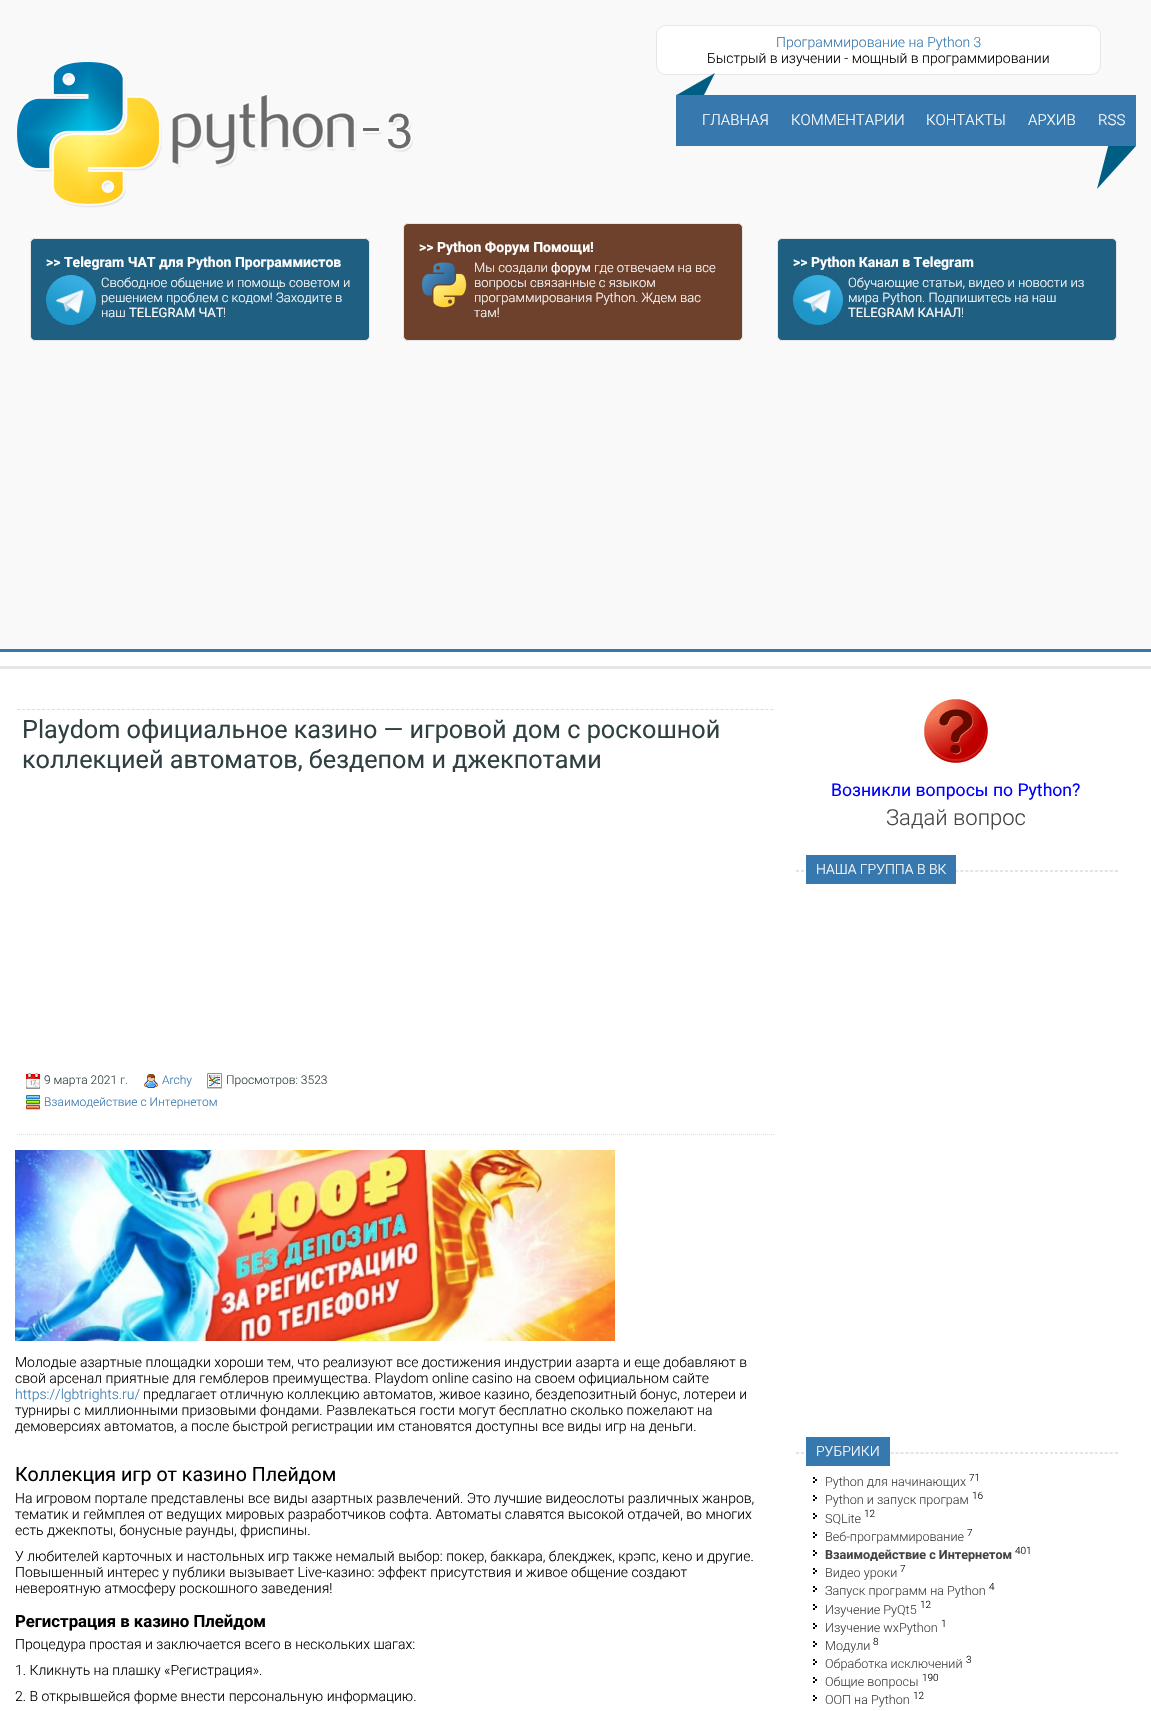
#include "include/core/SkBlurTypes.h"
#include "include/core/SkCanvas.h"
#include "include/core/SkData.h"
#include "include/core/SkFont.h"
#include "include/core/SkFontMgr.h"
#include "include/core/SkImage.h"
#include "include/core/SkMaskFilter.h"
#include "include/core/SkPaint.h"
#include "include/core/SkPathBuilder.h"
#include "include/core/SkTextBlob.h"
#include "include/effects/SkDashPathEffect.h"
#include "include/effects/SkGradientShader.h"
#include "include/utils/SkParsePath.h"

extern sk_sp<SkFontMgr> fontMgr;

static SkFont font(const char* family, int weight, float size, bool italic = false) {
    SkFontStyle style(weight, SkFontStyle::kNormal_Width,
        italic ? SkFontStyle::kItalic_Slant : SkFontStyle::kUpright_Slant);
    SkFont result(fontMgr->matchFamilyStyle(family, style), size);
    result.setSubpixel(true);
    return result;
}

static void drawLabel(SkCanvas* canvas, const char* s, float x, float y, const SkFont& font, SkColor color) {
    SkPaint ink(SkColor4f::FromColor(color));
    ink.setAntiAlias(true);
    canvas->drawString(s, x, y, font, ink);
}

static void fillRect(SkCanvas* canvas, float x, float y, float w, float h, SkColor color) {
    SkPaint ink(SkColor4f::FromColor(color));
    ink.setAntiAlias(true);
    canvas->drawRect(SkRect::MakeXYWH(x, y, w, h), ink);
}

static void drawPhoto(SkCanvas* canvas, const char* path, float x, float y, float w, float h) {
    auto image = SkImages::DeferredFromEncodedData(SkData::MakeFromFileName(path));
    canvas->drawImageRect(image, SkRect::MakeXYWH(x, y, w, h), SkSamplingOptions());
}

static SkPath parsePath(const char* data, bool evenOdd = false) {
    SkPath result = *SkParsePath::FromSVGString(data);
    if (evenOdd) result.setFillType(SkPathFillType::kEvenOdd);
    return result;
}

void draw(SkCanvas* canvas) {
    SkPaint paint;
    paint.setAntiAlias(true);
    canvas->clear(0xFFFFFFFF);
    fillRect(canvas, 0, 0, 1151, 649, 0xFFF9F9F9);
    paint.setColor(0xFFFFFFFF);
    canvas->drawRoundRect(SkRect::MakeXYWH(656.5f, 25.5f, 444, 49), 9.5f, 9.5f, paint);
    paint.setStroke(true);
    paint.setStrokeWidth(1);
    paint.setColor(0xFFE7E7E7);
    canvas->drawRoundRect(SkRect::MakeXYWH(656.5f, 25.5f, 444, 49), 9.5f, 9.5f, paint);
    SkFont font1 = font("Roboto", 300, 14);
    drawLabel(canvas, "Программирование на Python 3", 776, 47, font1, 0xFF3778AE);
    drawLabel(canvas, "Быстрый в изучении - мощный в программировании", 707, 63, font1, 0xFF000000);
    drawPhoto(canvas, "assets/img1.png", 17, 62, 145, 146);
    drawPhoto(canvas, "assets/img2.png", 172, 95, 241, 73);
    fillRect(canvas, 676, 95, 460, 51, 0xFF3778AE);
    drawPhoto(canvas, "assets/img3.png", 676, 73, 39, 22);
    SkFont font2 = font("Roboto", 300, 15);
    drawLabel(canvas, "ГЛАВНАЯ", 702, 125, font2, 0xFFFFFFFF);
    drawLabel(canvas, "КОММЕНТАРИИ", 791, 125, font2, 0xFFFFFFFF);
    drawLabel(canvas, "КОНТАКТЫ", 926, 125, font2, 0xFFFFFFFF);
    drawLabel(canvas, "АРХИВ", 1028, 125, font2, 0xFFFFFFFF);
    drawLabel(canvas, "RSS", 1098, 125, font2, 0xFFFFFFFF);
    drawPhoto(canvas, "assets/img4.png", 1097, 146, 39, 43);
    paint.setStroke(false);
    paint.setColor(0xFF1F5F82);
    canvas->drawRoundRect(SkRect::MakeXYWH(30.5f, 238.5f, 339, 102), 4.5f, 4.5f, paint);
    paint.setStroke(true);
    paint.setColor(0xFFE7E7E7);
    canvas->drawRoundRect(SkRect::MakeXYWH(30.5f, 238.5f, 339, 102), 4.5f, 4.5f, paint);
    SkFont font3 = font("Roboto", 700, 14);
    drawLabel(canvas, ">> Telegram ЧАТ для Python Программистов", 46, 267, font3, 0xFFFFFFFF);
    drawPhoto(canvas, "assets/img5.png", 46, 275, 50, 50);
    SkFont font4 = font("Roboto", 300, 13);
    drawLabel(canvas, "Свободное общение и помощь советом и", 101, 287, font4, 0xFFFFFFFF);
    drawLabel(canvas, "решением проблем с кодом! Заходите в", 101, 302, font4, 0xFFFFFFFF);
    drawLabel(canvas, "наш", 101, 317, font4, 0xFFFFFFFF);
    SkFont font5 = font("Roboto", 400, 13);
    drawLabel(canvas, "TELEGRAM ЧАТ", 129, 317, font5, 0xFFFFFFFF);
    drawLabel(canvas, "!", 223, 317, font4, 0xFFFFFFFF);
    paint.setStroke(false);
    paint.setColor(0xFF6D412C);
    canvas->drawRoundRect(SkRect::MakeXYWH(403.5f, 223.5f, 339, 117), 4.5f, 4.5f, paint);
    paint.setStroke(true);
    paint.setColor(0xFFE7E7E7);
    canvas->drawRoundRect(SkRect::MakeXYWH(403.5f, 223.5f, 339, 117), 4.5f, 4.5f, paint);
    drawLabel(canvas, ">> Python Форум Помощи!", 419, 252, font3, 0xFFFFFFFF);
    drawPhoto(canvas, "assets/img6.png", 421, 262, 46, 46);
    drawLabel(canvas, "Мы создали", 474, 272, font4, 0xFFFFFFFF);
    drawLabel(canvas, "форум", 551, 272, font5, 0xFFFFFFFF);
    drawLabel(canvas, "где отвечаем на все", 594, 272, font4, 0xFFFFFFFF);
    drawLabel(canvas, "вопросы связанные с языком", 474, 287, font4, 0xFFFFFFFF);
    drawLabel(canvas, "программирования Python. Ждем вас", 474, 302, font4, 0xFFFFFFFF);
    drawLabel(canvas, "там!", 474, 317, font4, 0xFFFFFFFF);
    paint.setStroke(false);
    paint.setColor(0xFF1F5F82);
    canvas->drawRoundRect(SkRect::MakeXYWH(777.5f, 238.5f, 339, 102), 4.5f, 4.5f, paint);
    paint.setStroke(true);
    paint.setColor(0xFFE7E7E7);
    canvas->drawRoundRect(SkRect::MakeXYWH(777.5f, 238.5f, 339, 102), 4.5f, 4.5f, paint);
    drawLabel(canvas, ">> Python Канал в Telegram", 793, 267, font3, 0xFFFFFFFF);
    drawPhoto(canvas, "assets/img5.png", 793, 275, 50, 50);
    drawLabel(canvas, "Обучающие статьи, видео и новости из", 848, 287, font4, 0xFFFFFFFF);
    drawLabel(canvas, "мира Python. Подпишитесь на наш", 848, 302, font4, 0xFFFFFFFF);
    drawLabel(canvas, "TELEGRAM КАНАЛ", 848, 317, font5, 0xFFFFFFFF);
    drawLabel(canvas, "!", 961, 317, font4, 0xFFFFFFFF);
    fillRect(canvas, 0, 649, 1151, 3, 0xFF3778AE);
    fillRect(canvas, 0, 666, 1151, 3, 0xFFE7E7E7);
    paint.setColor(0xFFD6DFDF);
    paint.setPathEffect(SkDashPathEffect::Make({{3, 1.99f}}, 0));
    canvas->drawPath(parsePath("M17 709.5H774"), paint);
    paint.setPathEffect(nullptr);
    paint.setPathEffect(SkDashPathEffect::Make({{1, 1}}, 0));
    canvas->drawPath(parsePath("M17 1134.5H774"), paint);
    paint.setPathEffect(nullptr);
    SkFont font6 = font("Roboto", 400, 25.2f);
    drawLabel(canvas, "Playdom официальное казино — игровой дом с роскошной", 22, 738, font6, 0xFF304042);
    drawLabel(canvas, "коллекцией автоматов, бездепом и джекпотами", 22, 768, font6, 0xFF304042);
    drawPhoto(canvas, "assets/img7.png", 26, 1073, 14, 16);
    SkFont font7 = font("Roboto", 300, 12);
    drawLabel(canvas, "9 марта 2021 г.", 44, 1084, font7, 0xFF304042);
    drawPhoto(canvas, "assets/img8.png", 144, 1074, 14, 14);
    drawLabel(canvas, "Archy", 162, 1084, font7, 0xFF3778AE);
    drawPhoto(canvas, "assets/img9.png", 207, 1073, 15, 16);
    drawLabel(canvas, "Просмотров: 3523", 226, 1084, font7, 0xFF304042);
    drawPhoto(canvas, "assets/img10.png", 26, 1095, 14, 15);
    drawLabel(canvas, "Взаимодействие с Интернетом", 44, 1106, font7, 0xFF3778AE);
    drawPhoto(canvas, "assets/img11.png", 15, 1150, 600, 191);
    drawLabel(canvas, "Молодые азартные площадки хороши тем, что реализуют все достижения индустрии азарта и еще добавляют в", 15, 1367, font1, 0xFF000000);
    drawLabel(canvas, "свой арсенал приятные для гемблеров преимущества. Playdom online casino на своем официальном сайте", 15, 1383, font1, 0xFF000000);
    drawLabel(canvas, "https://lgbtrights.ru/", 15, 1399, font1, 0xFF3778AE);
    drawLabel(canvas, "предлагает отличную коллекцию автоматов, живое казино, бездепозитный бонус, лотереи и", 143, 1399, font1, 0xFF000000);
    drawLabel(canvas, "турниры с миллионными призовыми фондами. Развлекаться гости могут бесплатно сколько пожелают на", 15, 1415, font1, 0xFF000000);
    drawLabel(canvas, "демоверсиях автоматов, а после быстрой регистрации им становятся доступны все виды игр на деньги.", 15, 1431, font1, 0xFF000000);
    SkFont font8 = font("Roboto", 400, 19.6f);
    drawLabel(canvas, "Коллекция игр от казино Плейдом", 15, 1481, font8, 0xFF000000);
    drawLabel(canvas, "На игровом портале представлены все виды азартных развлечений. Это лучшие видеослоты различных жанров,", 15, 1503, font1, 0xFF000000);
    drawLabel(canvas, "тематик и геймплея от ведущих мировых разработчиков софта. Автоматы славятся высокой отдачей, во многих", 15, 1519, font1, 0xFF000000);
    drawLabel(canvas, "есть джекпоты, бонусные раунды, фриспины.", 15, 1535, font1, 0xFF000000);
    drawLabel(canvas, "У любителей карточных и настольных игр также немалый выбор: покер, баккара, блекджек, крэпс, кено и другие.", 15, 1561, font1, 0xFF000000);
    drawLabel(canvas, "Повышенный интерес у публики вызывает Live-казино: эффект присутствия и живое общение создают", 15, 1577, font1, 0xFF000000);
    drawLabel(canvas, "невероятную атмосферу роскошного заведения!", 15, 1593, font1, 0xFF000000);
    SkFont font9 = font("Roboto", 700, 16.75f);
    drawLabel(canvas, "Регистрация в казино Плейдом", 15, 1627, font9, 0xFF000000);
    drawLabel(canvas, "Процедура простая и заключается всего в нескольких шагах:", 15, 1649, font1, 0xFF000000);
    drawLabel(canvas, "1. Кликнуть на плашку «Регистрация».", 15, 1675, font1, 0xFF000000);
    drawLabel(canvas, "2. В открывшейся форме внести персональную информацию.", 15, 1701, font1, 0xFF000000);
    drawPhoto(canvas, "assets/img12.png", 924, 699, 64, 64);
    SkFont font10 = font("Roboto", 400, 17.6f);
    drawLabel(canvas, "Возникли вопросы по Python?", 831, 796, font10, 0xFF0000FF);
    SkFont font11 = font("Roboto", 300, 22);
    drawLabel(canvas, "Задай вопрос", 886, 825, font11, 0xFF444444);
    paint.setColor(0xFFDEE6ED);
    paint.setPathEffect(SkDashPathEffect::Make({{3, 1.98f}}, 0));
    canvas->drawPath(parsePath("M796 870.5H1118"), paint);
    paint.setPathEffect(nullptr);
    fillRect(canvas, 1117, 870, 1, 2, 0xFFDEE6ED);
    paint.setPathEffect(SkDashPathEffect::Make({{3, 1.98f}}, 0));
    canvas->drawPath(parsePath("M796 871.5H1118"), paint);
    paint.setPathEffect(nullptr);
    fillRect(canvas, 806, 855, 150, 29, 0xFF3778AE);
    drawLabel(canvas, "НАША ГРУППА В ВК", 816, 874, font1, 0xFFFFFFFF);
    paint.setPathEffect(SkDashPathEffect::Make({{3, 1.98f}}, 0));
    canvas->drawPath(parsePath("M796 1452.5H1118"), paint);
    paint.setPathEffect(nullptr);
    fillRect(canvas, 1117, 1452, 1, 2, 0xFFDEE6ED);
    paint.setPathEffect(SkDashPathEffect::Make({{3, 1.98f}}, 0));
    canvas->drawPath(parsePath("M796 1453.5H1118"), paint);
    paint.setPathEffect(nullptr);
    fillRect(canvas, 806, 1437, 84, 29, 0xFF3778AE);
    drawLabel(canvas, "РУБРИКИ", 816, 1456, font1, 0xFFFFFFFF);
    drawPhoto(canvas, "assets/img13.png", 813, 1477, 4, 6);
    SkFont font12 = font("Roboto", 300, 12.6f);
    drawLabel(canvas, "Python для начинающих", 825, 1486, font12, 0xFF444444);
    SkFont font13 = font("Roboto", 300, 10);
    drawLabel(canvas, "71", 969, 1481, font13, 0xFF000000);
    drawPhoto(canvas, "assets/img13.png", 813, 1495, 4, 6);
    drawLabel(canvas, "Python и запуск програм", 825, 1504, font12, 0xFF444444);
    drawLabel(canvas, "16", 972, 1499, font13, 0xFF000000);
    drawPhoto(canvas, "assets/img13.png", 813, 1513, 4, 6);
    drawLabel(canvas, "SQLite", 825, 1523, font12, 0xFF444444);
    drawLabel(canvas, "12", 864, 1517, font13, 0xFF000000);
    drawPhoto(canvas, "assets/img13.png", 813, 1532, 4, 6);
    drawLabel(canvas, "Веб-программирование", 825, 1541, font12, 0xFF444444);
    drawLabel(canvas, "7", 967, 1536, font13, 0xFF000000);
    drawPhoto(canvas, "assets/img13.png", 813, 1550, 4, 6);
    SkFont font14 = font("Roboto", 700, 12.6f);
    drawLabel(canvas, "Взаимодействие с Интернетом", 825, 1559, font14, 0xFF444444);
    drawLabel(canvas, "401", 1015, 1554, font13, 0xFF000000);
    drawPhoto(canvas, "assets/img13.png", 813, 1568, 4, 6);
    drawLabel(canvas, "Видео уроки", 825, 1577, font12, 0xFF444444);
    drawLabel(canvas, "7", 900, 1572, font13, 0xFF000000);
    drawPhoto(canvas, "assets/img13.png", 813, 1586, 4, 6);
    drawLabel(canvas, "Запуск программ на Python", 825, 1595, font12, 0xFF444444);
    drawLabel(canvas, "4", 989, 1590, font13, 0xFF000000);
    drawPhoto(canvas, "assets/img13.png", 813, 1604, 4, 6);
    drawLabel(canvas, "Изучение PyQt5", 825, 1614, font12, 0xFF444444);
    drawLabel(canvas, "12", 920, 1608, font13, 0xFF000000);
    drawPhoto(canvas, "assets/img13.png", 813, 1623, 4, 6);
    drawLabel(canvas, "Изучение wxPython", 825, 1632, font12, 0xFF444444);
    drawLabel(canvas, "1", 941, 1627, font13, 0xFF000000);
    drawPhoto(canvas, "assets/img13.png", 813, 1641, 4, 6);
    drawLabel(canvas, "Модули", 825, 1650, font12, 0xFF444444);
    drawLabel(canvas, "8", 873, 1645, font13, 0xFF000000);
    drawPhoto(canvas, "assets/img13.png", 813, 1659, 4, 6);
    drawLabel(canvas, "Обработка исключений", 825, 1668, font12, 0xFF444444);
    drawLabel(canvas, "3", 966, 1663, font13, 0xFF000000);
    drawPhoto(canvas, "assets/img13.png", 813, 1677, 4, 6);
    drawLabel(canvas, "Общие вопросы", 825, 1686, font12, 0xFF444444);
    drawLabel(canvas, "190", 922, 1681, font13, 0xFF000000);
    drawPhoto(canvas, "assets/img13.png", 813, 1695, 4, 6);
    drawLabel(canvas, "ООП на Python", 825, 1704, font12, 0xFF444444);
    drawLabel(canvas, "12", 913, 1699, font13, 0xFF000000);
}
